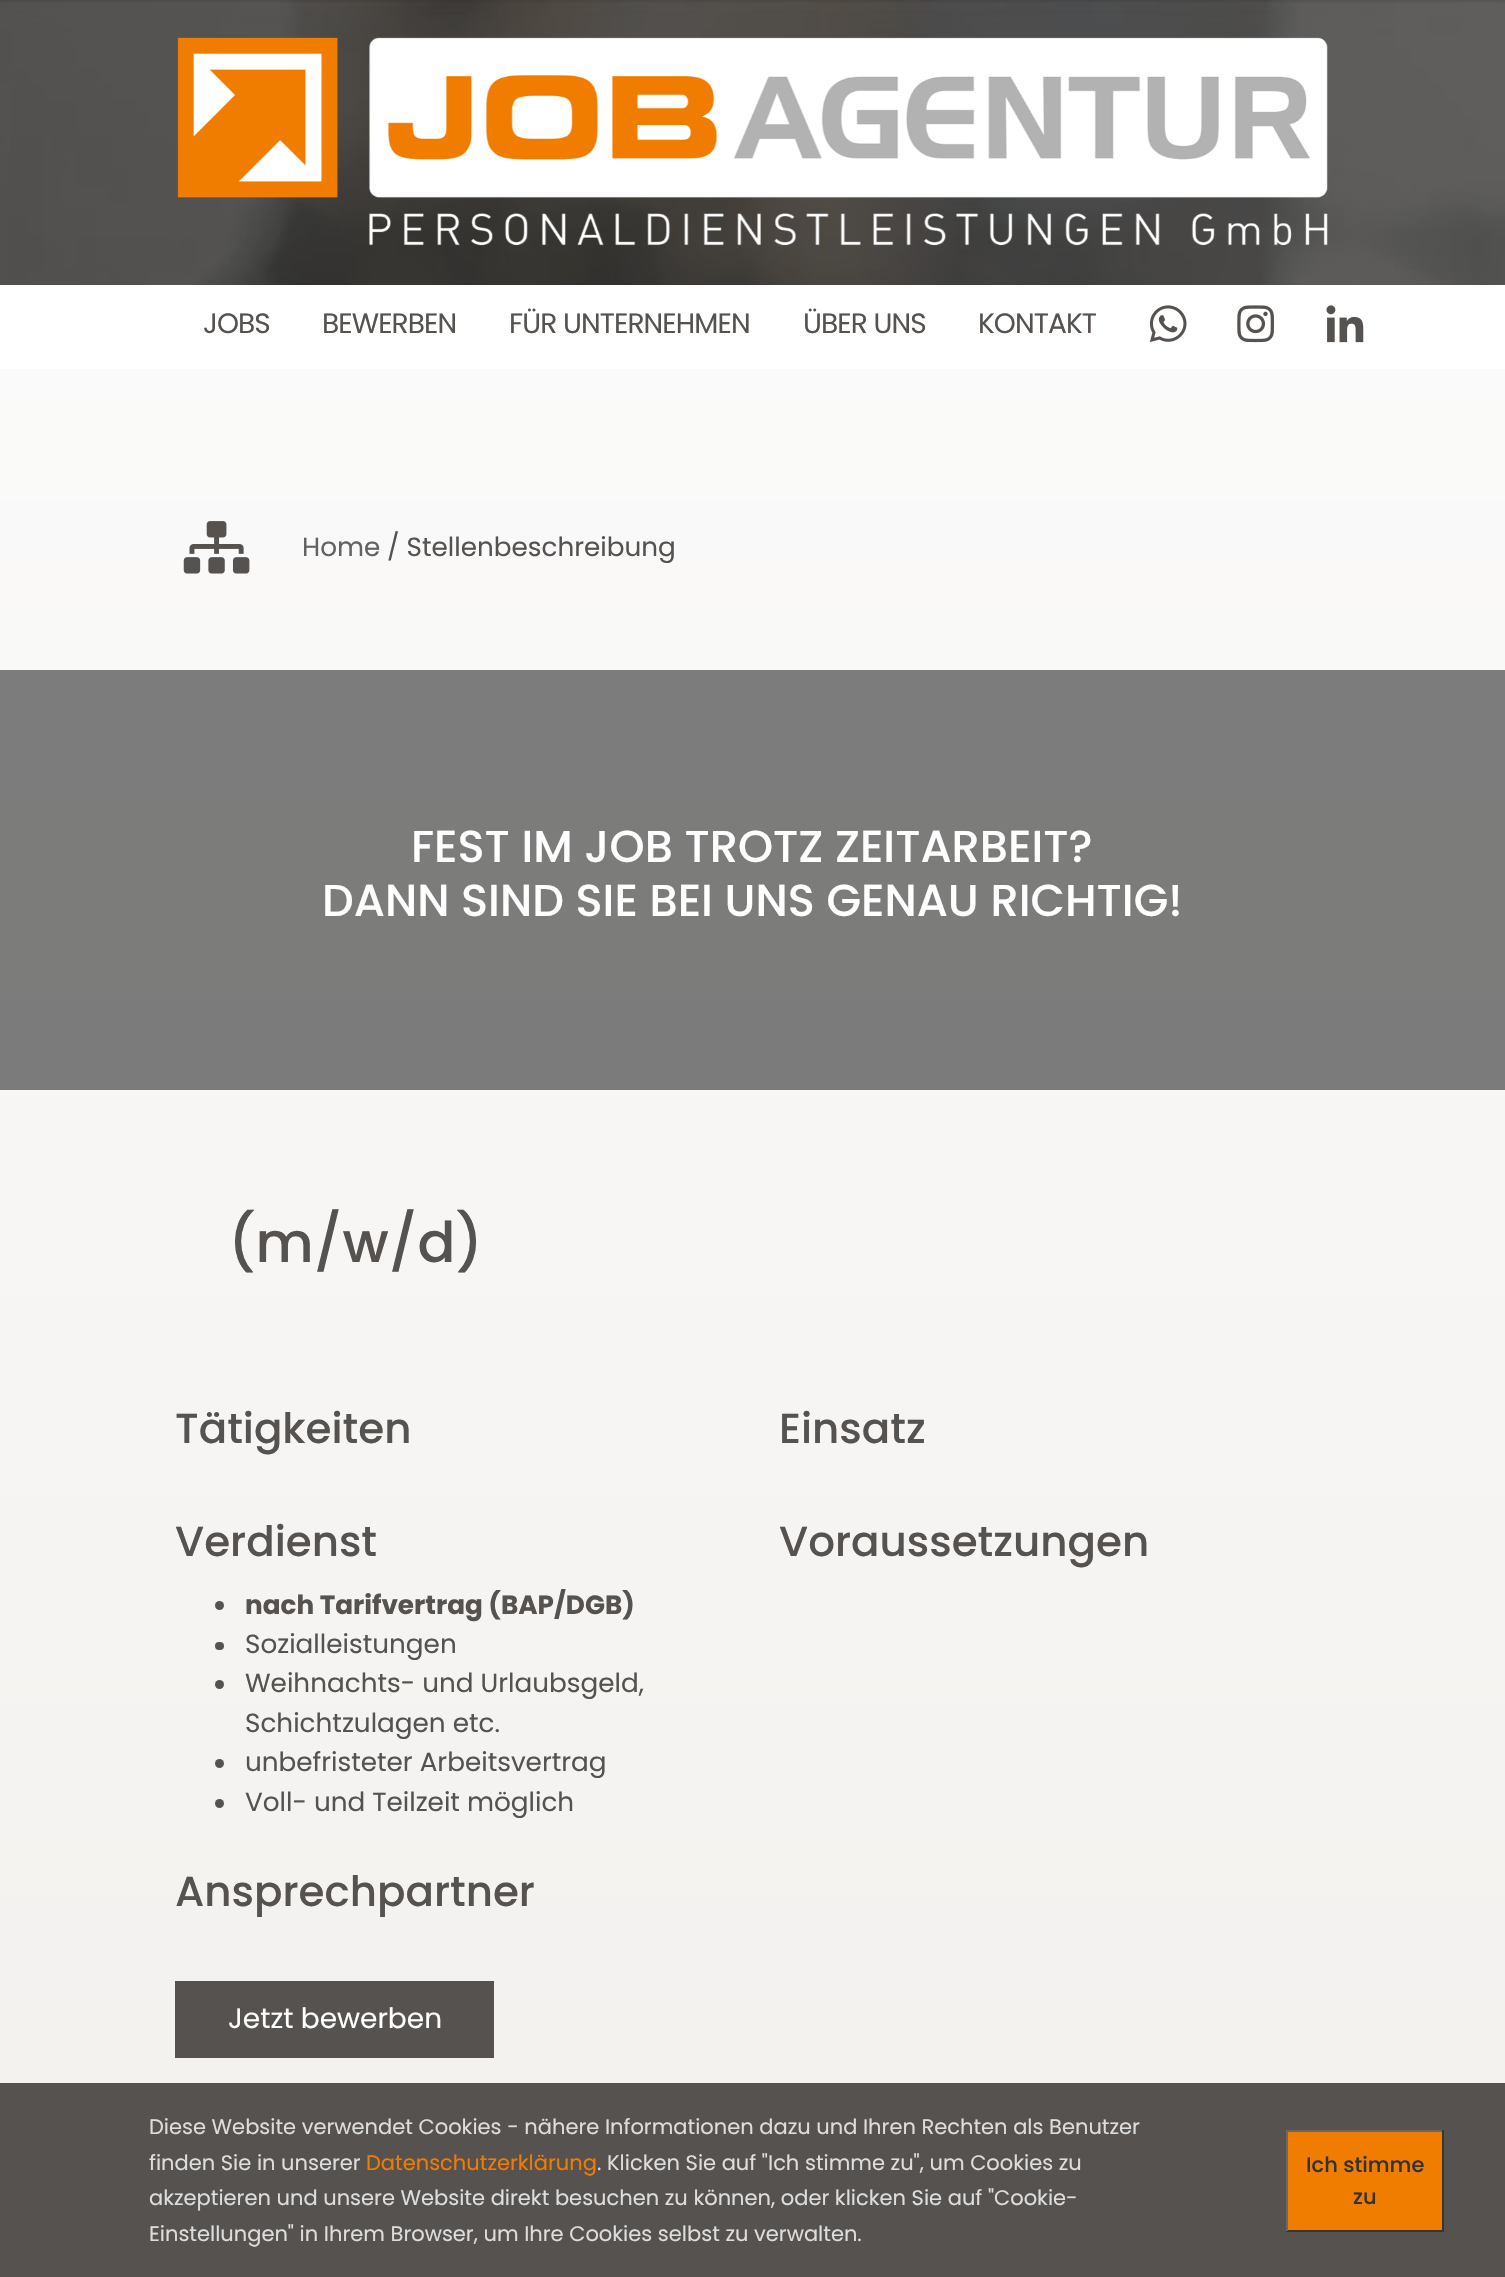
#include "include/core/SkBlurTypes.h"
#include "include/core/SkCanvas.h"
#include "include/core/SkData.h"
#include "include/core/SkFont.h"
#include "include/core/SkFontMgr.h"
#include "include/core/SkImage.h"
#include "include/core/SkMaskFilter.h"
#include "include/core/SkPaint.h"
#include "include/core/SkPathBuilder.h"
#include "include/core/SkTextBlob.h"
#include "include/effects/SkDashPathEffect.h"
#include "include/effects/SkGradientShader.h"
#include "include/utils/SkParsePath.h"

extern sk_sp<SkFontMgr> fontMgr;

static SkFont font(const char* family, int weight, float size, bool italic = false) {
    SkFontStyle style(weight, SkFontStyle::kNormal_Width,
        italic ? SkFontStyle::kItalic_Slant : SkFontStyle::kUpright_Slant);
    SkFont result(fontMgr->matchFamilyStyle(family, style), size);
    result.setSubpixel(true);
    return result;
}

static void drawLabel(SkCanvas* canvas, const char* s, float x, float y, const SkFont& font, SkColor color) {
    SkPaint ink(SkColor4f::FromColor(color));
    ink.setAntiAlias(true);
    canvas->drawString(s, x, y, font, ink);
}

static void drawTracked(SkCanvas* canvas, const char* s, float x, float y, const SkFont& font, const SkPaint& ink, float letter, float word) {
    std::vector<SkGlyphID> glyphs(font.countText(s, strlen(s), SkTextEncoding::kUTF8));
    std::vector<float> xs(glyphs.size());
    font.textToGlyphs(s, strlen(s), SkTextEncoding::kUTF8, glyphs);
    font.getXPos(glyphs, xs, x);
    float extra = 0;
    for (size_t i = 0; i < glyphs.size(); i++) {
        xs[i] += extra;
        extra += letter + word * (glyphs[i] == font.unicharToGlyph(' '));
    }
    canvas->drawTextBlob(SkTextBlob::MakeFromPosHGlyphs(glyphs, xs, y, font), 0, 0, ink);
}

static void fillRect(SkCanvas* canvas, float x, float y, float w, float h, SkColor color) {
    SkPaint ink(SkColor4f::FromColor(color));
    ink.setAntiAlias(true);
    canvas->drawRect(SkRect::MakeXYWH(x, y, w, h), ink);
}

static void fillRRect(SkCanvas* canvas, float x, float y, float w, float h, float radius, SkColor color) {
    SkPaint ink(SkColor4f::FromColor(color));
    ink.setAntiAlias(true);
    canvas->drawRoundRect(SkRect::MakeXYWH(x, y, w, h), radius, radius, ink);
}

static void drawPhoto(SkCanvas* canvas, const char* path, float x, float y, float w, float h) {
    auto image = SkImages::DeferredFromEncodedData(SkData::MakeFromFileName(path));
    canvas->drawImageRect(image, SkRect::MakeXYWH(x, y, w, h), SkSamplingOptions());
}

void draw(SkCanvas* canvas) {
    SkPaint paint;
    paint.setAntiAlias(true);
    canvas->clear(0xFFFFFFFF);
    {
        const SkColor colors[] = {0xFFFCFCFC, 0xFFEFECE8};
        const float stops[] = {0, 1};
        const SkPoint ends[] = {{752, 0}, {753, 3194}};
        paint.setShader(SkGradientShader::MakeLinear(ends, colors, stops, 2, SkTileMode::kClamp));
        paint.setAlpha(255);
    }
    canvas->drawRect(SkRect::MakeXYWH(0, 369, 1505, 1714), paint);
    {
        const SkColor colors[] = {0xFF7E7E7E, 0xFF787674};
        const float stops[] = {0, 1};
        const SkPoint ends[] = {{752, 0}, {753, 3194}};
        paint.setShader(SkGradientShader::MakeLinear(ends, colors, stops, 2, SkTileMode::kClamp));
        paint.setAlpha(255);
    }
    canvas->drawRect(SkRect::MakeXYWH(0, 670, 1505, 420), paint);
    drawPhoto(canvas, "assets/img1.png", 0, 0, 1505, 285);
    drawPhoto(canvas, "assets/img2.png", 177, 37, 1151, 209);
    SkFont font1 = font("Poppins", 400, 28);
    paint.setShader(nullptr);
    paint.setColor(0xFF56524F);
    drawTracked(canvas, "JOBS", 203, 333, font1, paint, -0.9f, 0);
    drawTracked(canvas, "BEWERBEN", 322, 333, font1, paint, -0.9f, 0);
    drawTracked(canvas, "FÜR UNTERNEHMEN", 509, 333, font1, paint, -0.9f, 0);
    drawTracked(canvas, "ÜBER UNS", 803, 333, font1, paint, -0.9f, 0);
    drawTracked(canvas, "KONTAKT", 978, 333, font1, paint, -0.9f, 0);
    drawPhoto(canvas, "assets/img3.png", 1149, 305, 38, 37);
    drawPhoto(canvas, "assets/img4.png", 1237, 305, 37, 38);
    drawPhoto(canvas, "assets/img5.png", 1326, 305, 38, 38);
    drawPhoto(canvas, "assets/img6.png", 183, 521, 67, 53);
    SkFont font2 = font("Poppins", 400, 26.25f);
    drawLabel(canvas, "Home", 302, 556, font2, 0xFF626262);
    drawLabel(canvas, "/ Stellenbeschreibung", 387, 556, font2, 0xFF56524F);
    SkFont font3 = font("Poppins", 500, 44.75f);
    drawLabel(canvas, "FEST IM JOB TROTZ ZEITARBEIT?", 411, 862, font3, 0xFFFFFFFF);
    drawLabel(canvas, "DANN SIND SIE BEI UNS GENAU RICHTIG!", 322, 916, font3, 0xFFFFFFFF);
    SkFont font4 = font("Poppins", 500, 56);
    drawLabel(canvas, "(m/w/d)", 228, 1262, font4, 0xFF56524F);
    SkFont font5 = font("Poppins", 500, 42);
    drawLabel(canvas, "Tätigkeiten", 175, 1443, font5, 0xFF56524F);
    drawLabel(canvas, "Einsatz", 779, 1443, font5, 0xFF56524F);
    drawLabel(canvas, "Verdienst", 175, 1556, font5, 0xFF56524F);
    canvas->drawCircle(219.5f, 1605.5f, 4.5f, paint);
    SkFont font6 = font("Poppins", 700, 26.25f);
    drawLabel(canvas, "nach Tarifvertrag (BAP/DGB)", 245, 1614, font6, 0xFF56524F);
    fillRRect(canvas, 215, 1642, 9, 8, 4, 0xFF56524F);
    drawLabel(canvas, "Sozialleistungen", 245, 1653, font2, 0xFF56524F);
    canvas->drawCircle(219.5f, 1684.5f, 4.5f, paint);
    drawLabel(canvas, "Weihnachts- und Urlaubsgeld,", 245, 1692, font2, 0xFF56524F);
    drawLabel(canvas, "Schichtzulagen etc.", 245, 1732, font2, 0xFF56524F);
    canvas->drawCircle(219.5f, 1763.5f, 4.5f, paint);
    drawLabel(canvas, "unbefristeter Arbeitsvertrag", 245, 1771, font2, 0xFF56524F);
    canvas->drawCircle(219.5f, 1803.5f, 4.5f, paint);
    drawLabel(canvas, "Voll- und Teilzeit möglich", 245, 1811, font2, 0xFF56524F);
    drawLabel(canvas, "Voraussetzungen", 779, 1556, font5, 0xFF56524F);
    drawLabel(canvas, "Ansprechpartner", 175, 1906, font5, 0xFF56524F);
    fillRect(canvas, 175, 1981, 319, 77, 0xFF56524F);
    drawLabel(canvas, "Jetzt bewerben", 228, 2028, font1, 0xFFFFFFFF);
    fillRect(canvas, 0, 2083, 1505, 194, 0xFF56524F);
    SkFont font7 = font("Poppins", 400, 21);
    drawLabel(canvas, "Diese Website verwendet Cookies - nähere Informationen dazu und Ihren Rechten als Benutzer", 149, 2134, font7, 0xFFDDDDDD);
    drawLabel(canvas, "finden Sie in unserer", 149, 2170, font7, 0xFFDDDDDD);
    drawLabel(canvas, "Datenschutzerklärung", 366, 2170, font7, 0xFFF07D00);
    drawLabel(canvas, ". Klicken Sie auf \"Ich stimme zu\", um Cookies zu", 597, 2170, font7, 0xFFDDDDDD);
    drawLabel(canvas, "akzeptieren und unsere Website direkt besuchen zu können, oder klicken Sie auf \"Cookie-", 149, 2205, font7, 0xFFDDDDDD);
    drawLabel(canvas, "Einstellungen\" in Ihrem Browser, um Ihre Cookies selbst zu verwalten.", 149, 2241, font7, 0xFFDDDDDD);
    fillRect(canvas, 1288, 2132, 154, 98, 0xFFF07D00);
    fillRect(canvas, 1286, 2130, 158, 2, 0xFF6D6762);
    fillRect(canvas, 1442, 2130, 2, 101, 0xFF383634);
    fillRect(canvas, 1286, 2230, 158, 2, 0xFF383634);
    fillRect(canvas, 1286, 2130, 2, 101, 0xFF6D6762);
    SkFont font8 = font("Poppins", 500, 21);
    drawLabel(canvas, "Ich stimme", 1306, 2172, font8, 0xFF333333);
    drawLabel(canvas, "zu", 1353, 2204, font8, 0xFF333333);
}
